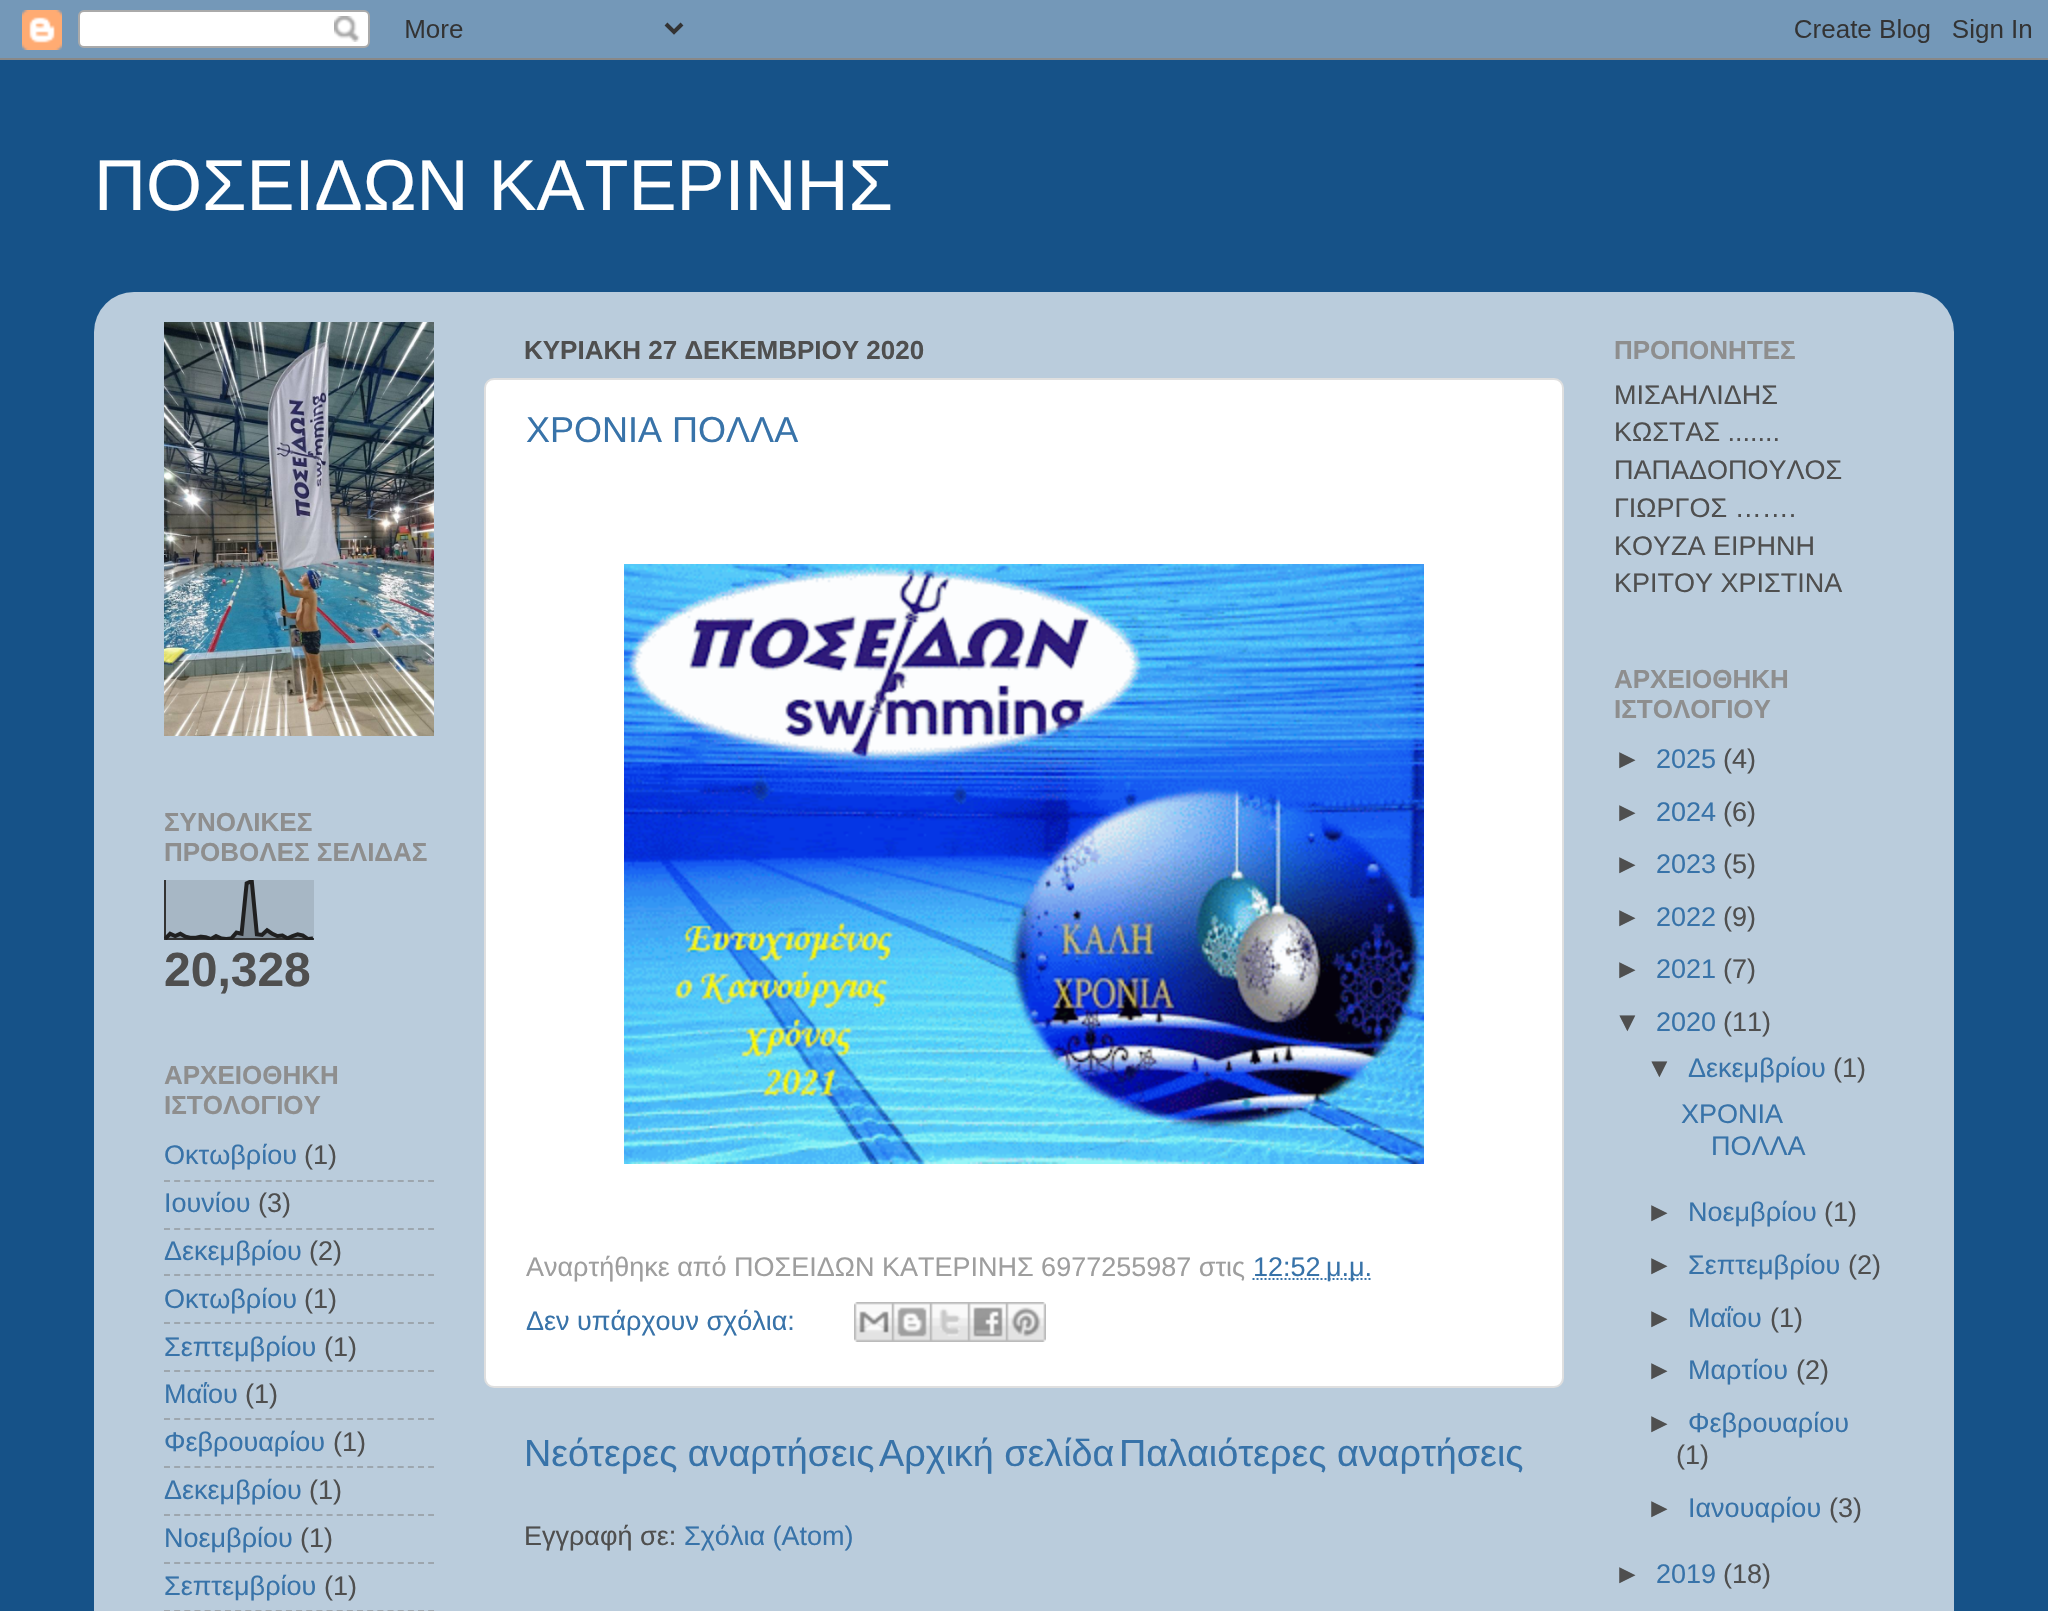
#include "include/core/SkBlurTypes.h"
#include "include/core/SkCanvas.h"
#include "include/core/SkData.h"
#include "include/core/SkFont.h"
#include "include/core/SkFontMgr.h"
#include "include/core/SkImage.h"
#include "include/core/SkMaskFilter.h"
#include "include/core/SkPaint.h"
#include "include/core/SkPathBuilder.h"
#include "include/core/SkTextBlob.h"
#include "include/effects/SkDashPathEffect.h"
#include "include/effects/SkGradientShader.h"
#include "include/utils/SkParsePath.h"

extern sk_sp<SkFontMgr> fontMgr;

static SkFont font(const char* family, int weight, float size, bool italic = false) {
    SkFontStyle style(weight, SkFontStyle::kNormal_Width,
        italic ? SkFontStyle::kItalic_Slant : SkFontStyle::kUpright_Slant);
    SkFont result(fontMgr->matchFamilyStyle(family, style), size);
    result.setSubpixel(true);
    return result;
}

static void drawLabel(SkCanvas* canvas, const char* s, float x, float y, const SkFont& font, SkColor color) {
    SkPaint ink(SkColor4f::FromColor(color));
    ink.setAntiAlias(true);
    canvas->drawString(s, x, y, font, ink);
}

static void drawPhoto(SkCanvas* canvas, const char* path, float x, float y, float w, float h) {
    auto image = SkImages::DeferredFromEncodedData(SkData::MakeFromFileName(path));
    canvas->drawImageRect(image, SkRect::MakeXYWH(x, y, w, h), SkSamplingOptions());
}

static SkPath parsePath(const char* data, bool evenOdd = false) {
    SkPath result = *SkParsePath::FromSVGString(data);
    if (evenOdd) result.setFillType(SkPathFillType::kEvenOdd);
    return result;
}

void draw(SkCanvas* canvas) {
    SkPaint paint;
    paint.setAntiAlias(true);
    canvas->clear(0xFF165288);
    drawPhoto(canvas, "assets/img1.png", 0, 0, 2048, 60);
    SkFont font1 = font("Liberation Sans", 400, 72);
    drawLabel(canvas, "ΠΟΣΕΙΔΩΝ ΚΑΤΕΡΙΝΗΣ", 94, 210, font1, 0xFFFFFFFF);
    drawPhoto(canvas, "assets/img2.png", 94, 292, 1860, 1319);
    drawPhoto(canvas, "assets/img3.png", 164, 322, 270, 414);
    SkFont font2 = font("Liberation Sans", 700, 26);
    drawLabel(canvas, "ΣΥΝΟΛΙΚΕΣ", 164, 831, font2, 0xFF8E8E8E);
    drawLabel(canvas, "ΠΡΟΒΟΛΕΣ ΣΕΛΙΔΑΣ", 164, 861, font2, 0xFF8E8E8E);
    drawPhoto(canvas, "assets/img4.png", 164, 880, 150, 60);
    SkFont font3 = font("Liberation Sans", 700, 48);
    drawLabel(canvas, "20,328", 164, 986, font3, 0xFF4F4F4F);
    drawLabel(canvas, "ΑΡΧΕΙΟΘΗΚΗ", 164, 1084, font2, 0xFF8E8E8E);
    drawLabel(canvas, "ΙΣΤΟΛΟΓΙΟΥ", 164, 1114, font2, 0xFF8E8E8E);
    SkFont font4 = font("Liberation Sans", 400, 27);
    drawLabel(canvas, "Οκτωβρίου", 164, 1164, font4, 0xFF3873A9);
    drawLabel(canvas, "(1)", 304, 1164, font4, 0xFF4F4F4F);
    paint.setStroke(true);
    paint.setStrokeWidth(2);
    paint.setColor(0xFF9DA6AE);
    paint.setPathEffect(SkDashPathEffect::Make({{6, 4.16f}}, 0));
    canvas->drawPath(parsePath("M164 1181H434"), paint);
    paint.setPathEffect(nullptr);
    drawLabel(canvas, "Ιουνίου", 164, 1212, font4, 0xFF3873A9);
    drawLabel(canvas, "(3)", 258, 1212, font4, 0xFF4F4F4F);
    paint.setPathEffect(SkDashPathEffect::Make({{6, 4.16f}}, 0));
    canvas->drawPath(parsePath("M164 1229H434"), paint);
    paint.setPathEffect(nullptr);
    drawLabel(canvas, "Δεκεμβρίου", 164, 1260, font4, 0xFF3873A9);
    drawLabel(canvas, "(2)", 309, 1260, font4, 0xFF4F4F4F);
    paint.setPathEffect(SkDashPathEffect::Make({{6, 4.16f}}, 0));
    canvas->drawPath(parsePath("M164 1275H434"), paint);
    paint.setPathEffect(nullptr);
    drawLabel(canvas, "Οκτωβρίου", 164, 1308, font4, 0xFF3873A9);
    drawLabel(canvas, "(1)", 304, 1308, font4, 0xFF4F4F4F);
    paint.setPathEffect(SkDashPathEffect::Make({{6, 4.16f}}, 0));
    canvas->drawPath(parsePath("M164 1323H434"), paint);
    paint.setPathEffect(nullptr);
    drawLabel(canvas, "Σεπτεμβρίου", 164, 1356, font4, 0xFF3873A9);
    drawLabel(canvas, "(1)", 324, 1356, font4, 0xFF4F4F4F);
    paint.setPathEffect(SkDashPathEffect::Make({{6, 4.16f}}, 0));
    canvas->drawPath(parsePath("M164 1371H434"), paint);
    paint.setPathEffect(nullptr);
    drawLabel(canvas, "Μαΐου", 164, 1403, font4, 0xFF3873A9);
    drawLabel(canvas, "(1)", 245, 1403, font4, 0xFF4F4F4F);
    paint.setPathEffect(SkDashPathEffect::Make({{6, 4.16f}}, 0));
    canvas->drawPath(parsePath("M164 1419H434"), paint);
    paint.setPathEffect(nullptr);
    drawLabel(canvas, "Φεβρουαρίου", 164, 1451, font4, 0xFF3873A9);
    drawLabel(canvas, "(1)", 333, 1451, font4, 0xFF4F4F4F);
    paint.setPathEffect(SkDashPathEffect::Make({{6, 4.16f}}, 0));
    canvas->drawPath(parsePath("M164 1467H434"), paint);
    paint.setPathEffect(nullptr);
    drawLabel(canvas, "Δεκεμβρίου", 164, 1499, font4, 0xFF3873A9);
    drawLabel(canvas, "(1)", 309, 1499, font4, 0xFF4F4F4F);
    paint.setPathEffect(SkDashPathEffect::Make({{6, 4.16f}}, 0));
    canvas->drawPath(parsePath("M164 1515H434"), paint);
    paint.setPathEffect(nullptr);
    drawLabel(canvas, "Νοεμβρίου", 164, 1547, font4, 0xFF3873A9);
    drawLabel(canvas, "(1)", 300, 1547, font4, 0xFF4F4F4F);
    paint.setPathEffect(SkDashPathEffect::Make({{6, 4.16f}}, 0));
    canvas->drawPath(parsePath("M164 1563H434"), paint);
    paint.setPathEffect(nullptr);
    drawLabel(canvas, "Σεπτεμβρίου", 164, 1595, font4, 0xFF3873A9);
    drawLabel(canvas, "(1)", 324, 1595, font4, 0xFF4F4F4F);
    paint.setPathEffect(SkDashPathEffect::Make({{6, 4.16f}}, 0));
    canvas->drawPath(parsePath("M164 1611H434"), paint);
    paint.setPathEffect(nullptr);
    drawLabel(canvas, "ΚΥΡΙΑΚΗ 27 ΔΕΚΕΜΒΡΙΟΥ 2020", 524, 359, font2, 0xFF4F4F4F);
    paint.setStroke(false);
    paint.setColor(0xFFFFFFFF);
    canvas->drawRoundRect(SkRect::MakeXYWH(485, 379, 1078, 1008), 9, 9, paint);
    paint.setStroke(true);
    paint.setColor(0xFFDFDFDF);
    canvas->drawRoundRect(SkRect::MakeXYWH(485, 379, 1078, 1008), 9, 9, paint);
    SkFont font5 = font("Liberation Sans", 400, 36);
    drawLabel(canvas, "ΧΡΟΝΙΑ ΠΟΛΛΑ", 526, 442, font5, 0xFF3873A9);
    drawPhoto(canvas, "assets/img5.png", 624, 564, 800, 600);
    drawLabel(canvas, "Αναρτήθηκε από ΠΟΣΕΙΔΩΝ ΚΑΤΕΡΙΝΗΣ 6977255987 στις", 526, 1276, font4, 0xFF9E9E9E);
    paint.setColor(0xFF3873A9);
    paint.setPathEffect(SkDashPathEffect::Make({{2, 2}}, 0));
    canvas->drawPath(parsePath("M1252.5 1279H1372"), paint);
    paint.setPathEffect(nullptr);
    drawLabel(canvas, "12:52 μ.μ.", 1253, 1276, font4, 0xFF3873A9);
    drawLabel(canvas, "Δεν υπάρχουν σχόλια:", 526, 1330, font4, 0xFF3873A9);
    drawPhoto(canvas, "assets/img6.png", 854, 1302, 38, 40);
    drawPhoto(canvas, "assets/img7.png", 892, 1302, 38, 40);
    drawPhoto(canvas, "assets/img8.png", 930, 1302, 38, 40);
    drawPhoto(canvas, "assets/img9.png", 968, 1302, 38, 40);
    drawPhoto(canvas, "assets/img10.png", 1006, 1302, 40, 40);
    SkFont font6 = font("Liberation Sans", 400, 37.75f);
    drawLabel(canvas, "Νεότερες αναρτήσεις", 524, 1466, font6, 0xFF3873A9);
    drawLabel(canvas, "Αρχική σελίδα", 879, 1466, font6, 0xFF3873A9);
    drawLabel(canvas, "Παλαιότερες αναρτήσεις", 1119, 1466, font6, 0xFF3873A9);
    drawLabel(canvas, "Εγγραφή σε:", 524, 1545, font4, 0xFF4F4F4F);
    drawLabel(canvas, "Σχόλια (Atom)", 684, 1545, font4, 0xFF3873A9);
    drawLabel(canvas, "ΠΡΟΠΟΝΗΤΕΣ", 1614, 359, font2, 0xFF8E8E8E);
    drawLabel(canvas, "ΜΙΣΑΗΛΙΔΗΣ", 1614, 404, font4, 0xFF4F4F4F);
    drawLabel(canvas, "ΚΩΣΤΑΣ .......", 1614, 441, font4, 0xFF4F4F4F);
    drawLabel(canvas, "ΠΑΠΑΔΟΠΟΥΛΟΣ", 1614, 479, font4, 0xFF4F4F4F);
    drawLabel(canvas, "ΓΙΩΡΓΟΣ …….", 1614, 517, font4, 0xFF4F4F4F);
    drawLabel(canvas, "ΚΟΥΖΑ ΕΙΡΗΝΗ", 1614, 555, font4, 0xFF4F4F4F);
    drawLabel(canvas, "ΚΡΙΤΟΥ ΧΡΙΣΤΙΝΑ", 1614, 592, font4, 0xFF4F4F4F);
    drawLabel(canvas, "ΑΡΧΕΙΟΘΗΚΗ", 1614, 688, font2, 0xFF8E8E8E);
    drawLabel(canvas, "ΙΣΤΟΛΟΓΙΟΥ", 1614, 718, font2, 0xFF8E8E8E);
    drawLabel(canvas, "►", 1614, 768, font4, 0xFF4F4F4F);
    drawLabel(canvas, "2025", 1656, 768, font4, 0xFF3873A9);
    drawLabel(canvas, "(4)", 1723, 768, font4, 0xFF4F4F4F);
    drawLabel(canvas, "►", 1614, 821, font4, 0xFF4F4F4F);
    drawLabel(canvas, "2024", 1656, 821, font4, 0xFF3873A9);
    drawLabel(canvas, "(6)", 1723, 821, font4, 0xFF4F4F4F);
    drawLabel(canvas, "►", 1614, 873, font4, 0xFF4F4F4F);
    drawLabel(canvas, "2023", 1656, 873, font4, 0xFF3873A9);
    drawLabel(canvas, "(5)", 1723, 873, font4, 0xFF4F4F4F);
    drawLabel(canvas, "►", 1614, 926, font4, 0xFF4F4F4F);
    drawLabel(canvas, "2022", 1656, 926, font4, 0xFF3873A9);
    drawLabel(canvas, "(9)", 1723, 926, font4, 0xFF4F4F4F);
    drawLabel(canvas, "►", 1614, 978, font4, 0xFF4F4F4F);
    drawLabel(canvas, "2021", 1656, 978, font4, 0xFF3873A9);
    drawLabel(canvas, "(7)", 1723, 978, font4, 0xFF4F4F4F);
    drawLabel(canvas, "▼", 1614, 1031, font4, 0xFF4F4F4F);
    drawLabel(canvas, "2020", 1656, 1031, font4, 0xFF3873A9);
    drawLabel(canvas, "(11)", 1723, 1031, font4, 0xFF4F4F4F);
    drawLabel(canvas, "▼", 1646, 1077, font4, 0xFF4F4F4F);
    drawLabel(canvas, "Δεκεμβρίου", 1688, 1077, font4, 0xFF3873A9);
    drawLabel(canvas, "(1)", 1833, 1077, font4, 0xFF4F4F4F);
    drawLabel(canvas, "ΧΡΟΝΙΑ", 1681, 1123, font4, 0xFF3873A9);
    drawLabel(canvas, "ΠΟΛΛΑ", 1711, 1155, font4, 0xFF3873A9);
    drawLabel(canvas, "►", 1646, 1221, font4, 0xFF4F4F4F);
    drawLabel(canvas, "Νοεμβρίου", 1688, 1221, font4, 0xFF3873A9);
    drawLabel(canvas, "(1)", 1824, 1221, font4, 0xFF4F4F4F);
    drawLabel(canvas, "►", 1646, 1274, font4, 0xFF4F4F4F);
    drawLabel(canvas, "Σεπτεμβρίου", 1688, 1274, font4, 0xFF3873A9);
    drawLabel(canvas, "(2)", 1848, 1274, font4, 0xFF4F4F4F);
    drawLabel(canvas, "►", 1646, 1327, font4, 0xFF4F4F4F);
    drawLabel(canvas, "Μαΐου", 1688, 1327, font4, 0xFF3873A9);
    drawLabel(canvas, "(1)", 1770, 1327, font4, 0xFF4F4F4F);
    drawLabel(canvas, "►", 1646, 1379, font4, 0xFF4F4F4F);
    drawLabel(canvas, "Μαρτίου", 1688, 1379, font4, 0xFF3873A9);
    drawLabel(canvas, "(2)", 1796, 1379, font4, 0xFF4F4F4F);
    drawLabel(canvas, "►", 1646, 1432, font4, 0xFF4F4F4F);
    drawLabel(canvas, "Φεβρουαρίου", 1688, 1432, font4, 0xFF3873A9);
    drawLabel(canvas, "(1)", 1676, 1464, font4, 0xFF4F4F4F);
    drawLabel(canvas, "►", 1646, 1517, font4, 0xFF4F4F4F);
    drawLabel(canvas, "Ιανουαρίου", 1688, 1517, font4, 0xFF3873A9);
    drawLabel(canvas, "(3)", 1829, 1517, font4, 0xFF4F4F4F);
    drawLabel(canvas, "►", 1614, 1583, font4, 0xFF4F4F4F);
    drawLabel(canvas, "2019", 1656, 1583, font4, 0xFF3873A9);
    drawLabel(canvas, "(18)", 1723, 1583, font4, 0xFF4F4F4F);
}
